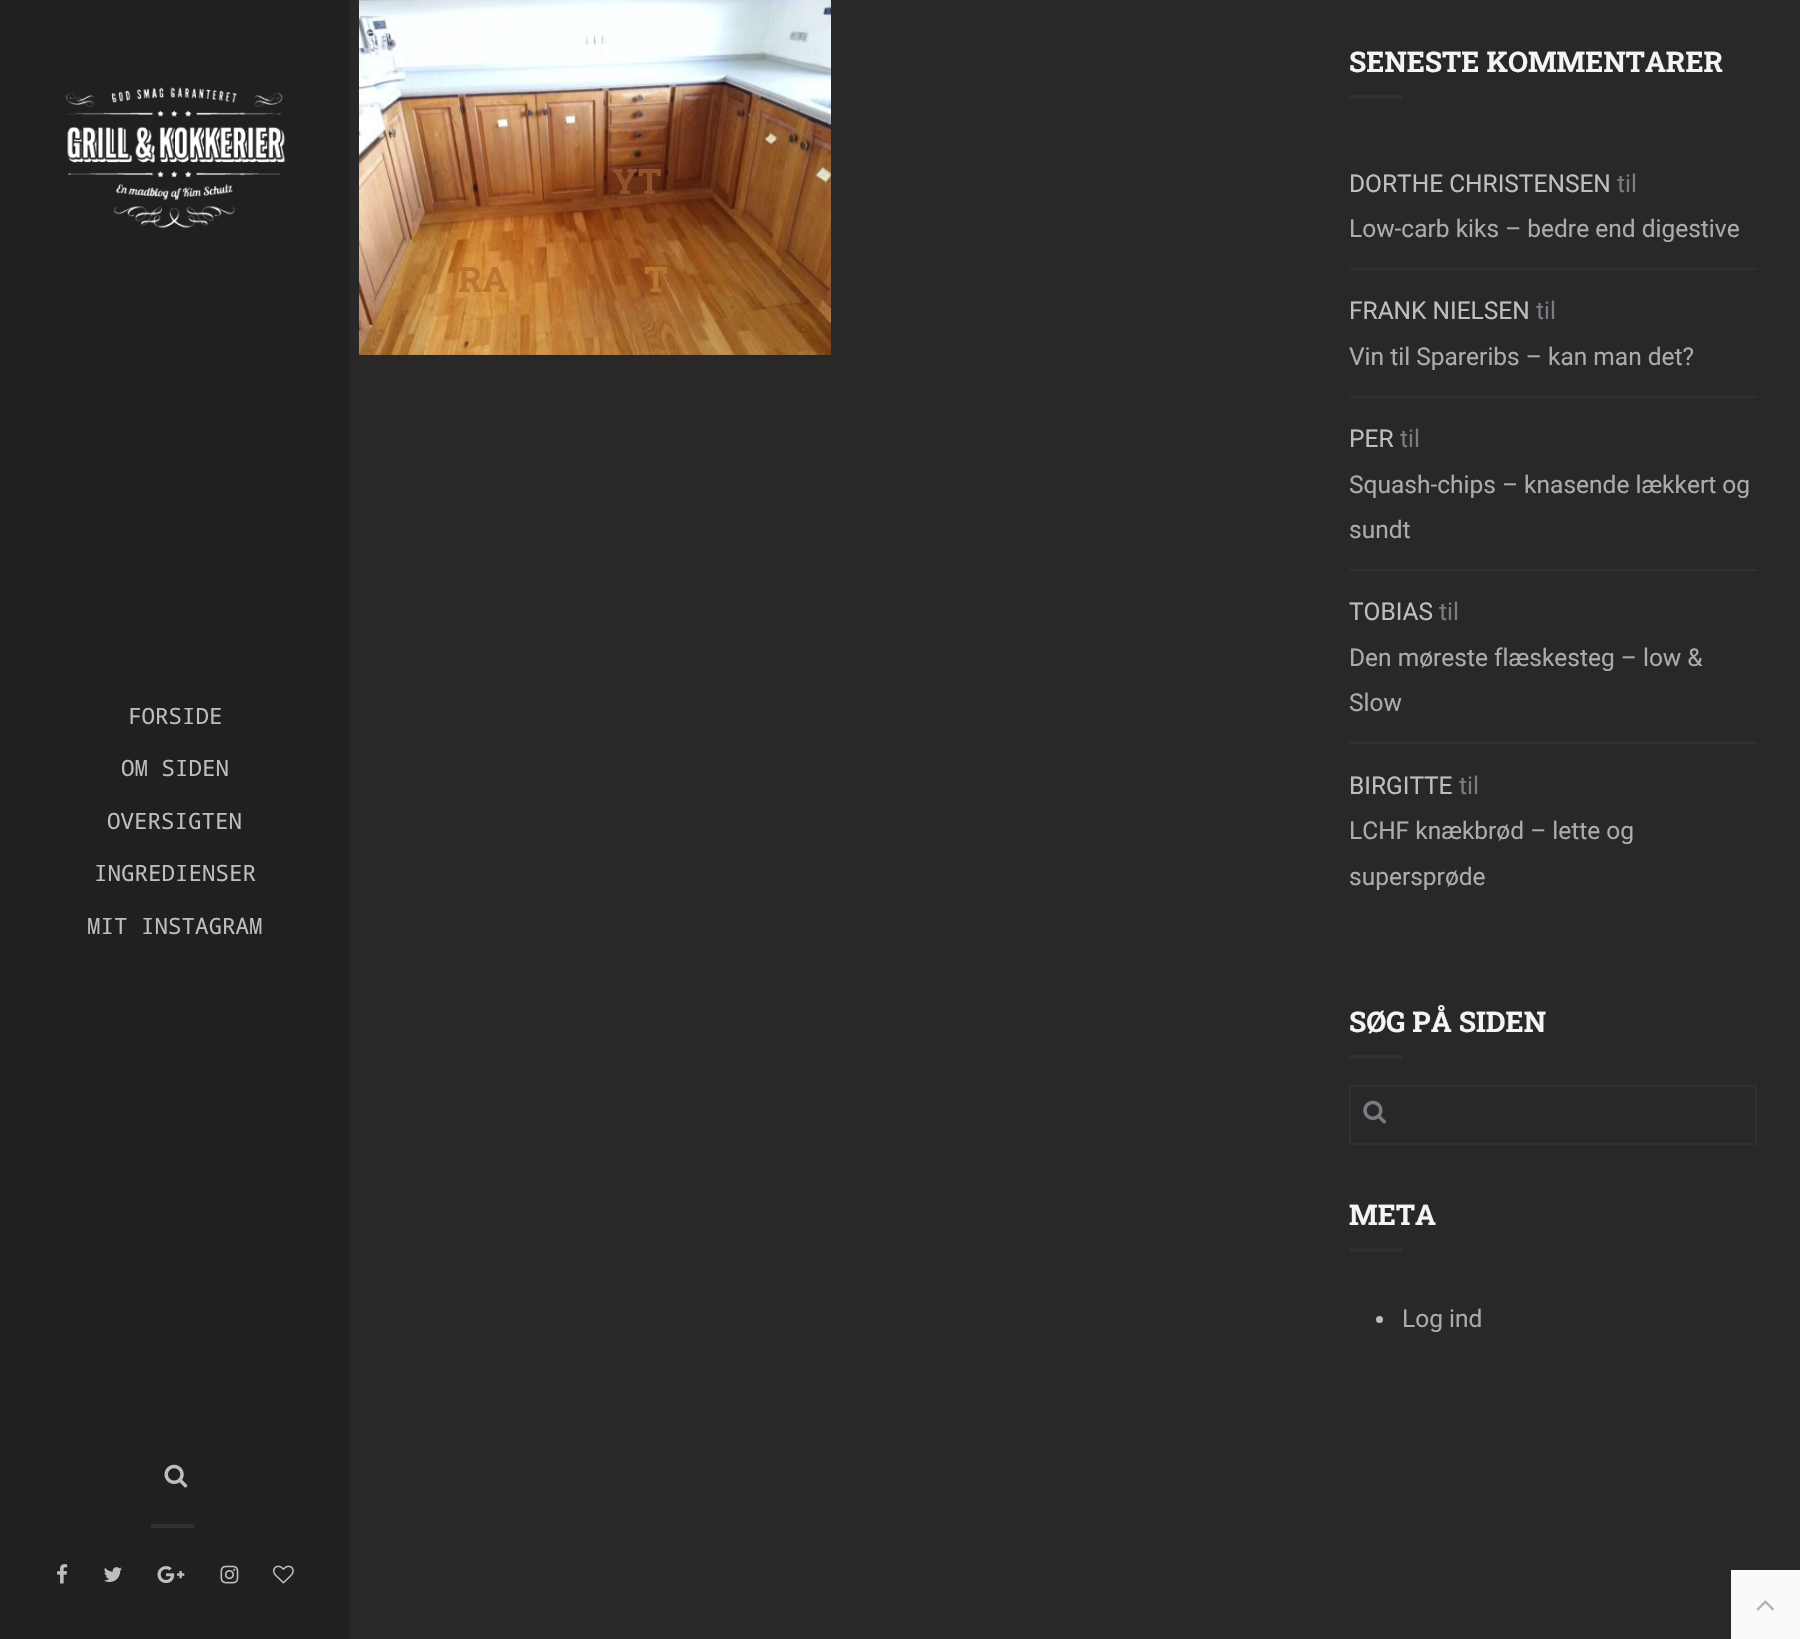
#include "include/core/SkBlurTypes.h"
#include "include/core/SkCanvas.h"
#include "include/core/SkData.h"
#include "include/core/SkFont.h"
#include "include/core/SkFontMgr.h"
#include "include/core/SkImage.h"
#include "include/core/SkMaskFilter.h"
#include "include/core/SkPaint.h"
#include "include/core/SkPathBuilder.h"
#include "include/core/SkTextBlob.h"
#include "include/effects/SkDashPathEffect.h"
#include "include/effects/SkGradientShader.h"
#include "include/utils/SkParsePath.h"

extern sk_sp<SkFontMgr> fontMgr;

static SkFont font(const char* family, int weight, float size, bool italic = false) {
    SkFontStyle style(weight, SkFontStyle::kNormal_Width,
        italic ? SkFontStyle::kItalic_Slant : SkFontStyle::kUpright_Slant);
    SkFont result(fontMgr->matchFamilyStyle(family, style), size);
    result.setSubpixel(true);
    return result;
}

static void drawLabel(SkCanvas* canvas, const char* s, float x, float y, const SkFont& font, SkColor color) {
    SkPaint ink(SkColor4f::FromColor(color));
    ink.setAntiAlias(true);
    canvas->drawString(s, x, y, font, ink);
}

static void fillRect(SkCanvas* canvas, float x, float y, float w, float h, SkColor color) {
    SkPaint ink(SkColor4f::FromColor(color));
    ink.setAntiAlias(true);
    canvas->drawRect(SkRect::MakeXYWH(x, y, w, h), ink);
}

static void drawPhoto(SkCanvas* canvas, const char* path, float x, float y, float w, float h) {
    auto image = SkImages::DeferredFromEncodedData(SkData::MakeFromFileName(path));
    canvas->drawImageRect(image, SkRect::MakeXYWH(x, y, w, h), SkSamplingOptions());
}

void draw(SkCanvas* canvas) {
    SkPaint paint;
    paint.setAntiAlias(true);
    canvas->clear(0xFF202020);
    drawPhoto(canvas, "assets/img1.png", 65, 87, 221, 142);
    SkFont font1 = font("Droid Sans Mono", 400, 22.5f);
    drawLabel(canvas, "FORSIDE", 128, 724, font1, 0xFFBCBEC0);
    drawLabel(canvas, "OM SIDEN", 121, 776, font1, 0xFFBCBEC0);
    drawLabel(canvas, "OVERSIGTEN", 107, 829, font1, 0xFFBCBEC0);
    drawLabel(canvas, "INGREDIENSER", 94, 881, font1, 0xFFBCBEC0);
    drawLabel(canvas, "MIT INSTAGRAM", 87, 934, font1, 0xFFBCBEC0);
    drawPhoto(canvas, "assets/img2.png", 164, 1464, 24, 24);
    fillRect(canvas, 151, 1524, 43, 4, 0xFF2E3032);
    drawPhoto(canvas, "assets/img3.png", 57, 1564, 11, 20);
    drawPhoto(canvas, "assets/img4.png", 104, 1567, 18, 15);
    drawPhoto(canvas, "assets/img5.png", 157, 1566, 28, 18);
    drawPhoto(canvas, "assets/img6.png", 220, 1565, 19, 19);
    drawPhoto(canvas, "assets/img7.png", 273, 1565, 21, 19);
    fillRect(canvas, 350, 0, 1450, 1639, 0xFF282829);
    drawPhoto(canvas, "assets/img8.png", 359, 0, 472, 355);
    SkFont font2 = font("Roboto Slab", 700, 35);
    drawLabel(canvas, "YT", 612, 194, font2, 0xFF90522B);
    drawLabel(canvas, "RA", 458, 292, font2, 0xFFBA7631);
    drawLabel(canvas, "T", 644, 292, font2, 0xFFBA7631);
    SkFont font3 = font("Roboto Slab", 700, 28.4f);
    drawLabel(canvas, "SENESTE KOMMENTARER", 1349, 72, font3, 0xFFF3F4F7);
    fillRect(canvas, 1349, 95, 53, 4, 0xFF2E3032);
    SkFont font4 = font("Roboto", 400, 24.5f);
    drawLabel(canvas, "DORTHE CHRISTENSEN", 1349, 192, font4, 0xFFBCBEC0);
    drawLabel(canvas, "til", 1617, 192, font4, 0xFF787C81);
    drawLabel(canvas, "Low-carb kiks – bedre end digestive", 1349, 237, font4, 0xFFABABAB);
    fillRect(canvas, 1349, 268, 408, 2, 0xFF2E3032);
    drawLabel(canvas, "FRANK NIELSEN", 1349, 319, font4, 0xFFBCBEC0);
    drawLabel(canvas, "til", 1536, 319, font4, 0xFF787C81);
    drawLabel(canvas, "Vin til Spareribs – kan man det?", 1349, 365, font4, 0xFFABABAB);
    fillRect(canvas, 1349, 396, 408, 2, 0xFF2E3032);
    drawLabel(canvas, "PER", 1349, 447, font4, 0xFFBCBEC0);
    drawLabel(canvas, "til", 1400, 447, font4, 0xFF787C81);
    drawLabel(canvas, "Squash-chips – knasende lækkert og", 1349, 493, font4, 0xFFABABAB);
    drawLabel(canvas, "sundt", 1349, 538, font4, 0xFFABABAB);
    fillRect(canvas, 1349, 569, 408, 2, 0xFF2E3032);
    drawLabel(canvas, "TOBIAS", 1349, 620, font4, 0xFFBCBEC0);
    drawLabel(canvas, "til", 1439, 620, font4, 0xFF787C81);
    drawLabel(canvas, "Den møreste flæskesteg – low &", 1349, 666, font4, 0xFFABABAB);
    drawLabel(canvas, "Slow", 1349, 711, font4, 0xFFABABAB);
    fillRect(canvas, 1349, 742, 408, 2, 0xFF2E3032);
    drawLabel(canvas, "BIRGITTE", 1349, 794, font4, 0xFFBCBEC0);
    drawLabel(canvas, "til", 1459, 794, font4, 0xFF787C81);
    drawLabel(canvas, "LCHF knækbrød – lette og", 1349, 839, font4, 0xFFABABAB);
    drawLabel(canvas, "supersprøde", 1349, 885, font4, 0xFFABABAB);
    drawLabel(canvas, "SØG PÅ SIDEN", 1349, 1032, font3, 0xFFF3F4F7);
    fillRect(canvas, 1349, 1055, 53, 4, 0xFF2E3032);
    paint.setStroke(true);
    paint.setStrokeWidth(2);
    paint.setColor(0xFF2E3032);
    canvas->drawRect(SkRect::MakeXYWH(1350, 1086, 406, 58), paint);
    drawPhoto(canvas, "assets/img9.png", 1363, 1100, 23, 24);
    drawLabel(canvas, "META", 1349, 1225, font3, 0xFFF3F4F7);
    fillRect(canvas, 1349, 1248, 53, 4, 0xFF2E3032);
    paint.setStroke(false);
    paint.setColor(0xFFBCBEC0);
    canvas->drawCircle(1379.5f, 1319.5f, 3.5f, paint);
    drawLabel(canvas, "Log ind", 1402, 1327, font4, 0xFFABABAB);
    fillRect(canvas, 1731, 1570, 69, 69, 0xFFF9FAFC);
    drawPhoto(canvas, "assets/img10.png", 1756, 1600, 18, 11);
}
